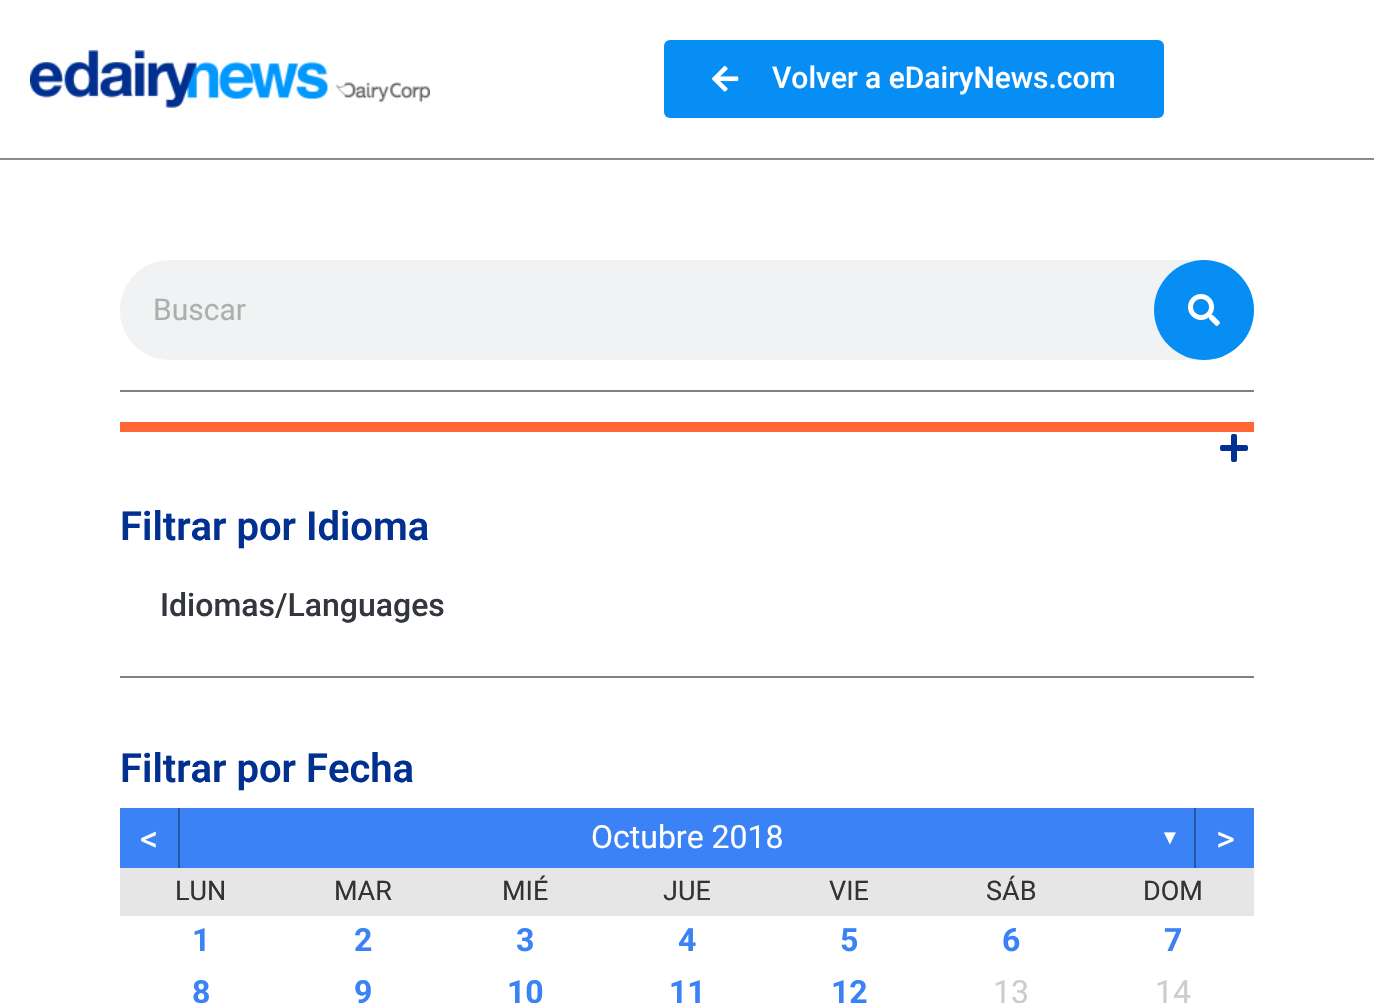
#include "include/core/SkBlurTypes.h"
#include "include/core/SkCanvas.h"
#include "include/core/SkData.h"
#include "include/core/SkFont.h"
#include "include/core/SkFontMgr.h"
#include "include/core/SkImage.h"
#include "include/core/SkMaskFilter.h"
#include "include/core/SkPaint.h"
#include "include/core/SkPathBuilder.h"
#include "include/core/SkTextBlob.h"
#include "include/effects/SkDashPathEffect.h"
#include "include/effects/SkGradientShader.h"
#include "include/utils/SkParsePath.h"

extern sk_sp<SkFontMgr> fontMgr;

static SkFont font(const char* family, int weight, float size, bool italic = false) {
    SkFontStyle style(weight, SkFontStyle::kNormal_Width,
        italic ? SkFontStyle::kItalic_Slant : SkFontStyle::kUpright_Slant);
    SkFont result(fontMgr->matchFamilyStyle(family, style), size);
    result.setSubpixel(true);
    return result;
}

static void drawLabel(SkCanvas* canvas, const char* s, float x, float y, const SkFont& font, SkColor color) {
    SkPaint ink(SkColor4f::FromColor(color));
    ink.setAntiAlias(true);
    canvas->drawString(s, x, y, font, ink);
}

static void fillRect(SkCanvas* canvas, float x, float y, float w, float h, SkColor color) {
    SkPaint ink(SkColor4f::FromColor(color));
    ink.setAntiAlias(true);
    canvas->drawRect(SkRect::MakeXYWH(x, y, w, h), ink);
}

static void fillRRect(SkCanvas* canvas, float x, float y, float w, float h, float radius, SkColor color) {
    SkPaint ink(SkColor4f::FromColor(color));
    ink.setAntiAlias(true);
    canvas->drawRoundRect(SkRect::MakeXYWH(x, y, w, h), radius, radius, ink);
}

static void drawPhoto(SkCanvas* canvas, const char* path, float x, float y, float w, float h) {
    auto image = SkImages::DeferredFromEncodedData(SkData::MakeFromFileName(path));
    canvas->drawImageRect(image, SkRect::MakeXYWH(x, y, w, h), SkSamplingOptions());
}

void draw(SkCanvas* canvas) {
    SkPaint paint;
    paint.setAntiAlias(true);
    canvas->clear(0xFFFFFFFF);
    fillRect(canvas, 0, 158, 1374, 2, 0xFF8B8B8B);
    drawPhoto(canvas, "assets/img1.png", 30, 50, 400, 58);
    fillRRect(canvas, 664, 40, 500, 78, 6, 0xFF078EF4);
    drawPhoto(canvas, "assets/img2.png", 712, 66, 27, 26);
    SkFont font1 = font("Roboto", 500, 30);
    drawLabel(canvas, "Volver a eDairyNews.com", 772, 88, font1, 0xFFFFFFFF);
    fillRRect(canvas, 120, 260, 1134, 100, 50, 0xFFF1F2F3);
    SkFont font2 = font("Roboto", 400, 30);
    drawLabel(canvas, "Buscar", 153, 320, font2, 0xFFADAEAE);
    paint.setColor(0xFF078EF4);
    canvas->drawCircle(1204, 310, 50, paint);
    drawPhoto(canvas, "assets/img3.png", 1188, 294, 32, 32);
    fillRect(canvas, 120, 390, 1134, 2, 0xFF808080);
    fillRect(canvas, 120, 422, 1134, 10, 0xFFFF6633);
    drawPhoto(canvas, "assets/img4.png", 1220, 434, 28, 28);
    SkFont font3 = font("Roboto", 600, 40);
    drawLabel(canvas, "Filtrar por Idioma", 120, 540, font3, 0xFF013091);
    SkFont font4 = font("Roboto", 500, 32);
    drawLabel(canvas, "Idiomas/Languages", 160, 616, font4, 0xFF33373D);
    fillRect(canvas, 120, 676, 1134, 2, 0xFF808080);
    drawLabel(canvas, "Filtrar por Fecha", 120, 782, font3, 0xFF013091);
    fillRect(canvas, 120, 808, 1134, 60, 0xFF3B82F6);
    fillRect(canvas, 178, 808, 2, 60, 0xFF2757A1);
    SkFont font5 = font("Roboto", 400, 36);
    drawLabel(canvas, "<", 140, 851, font5, 0xFFFFFFFF);
    SkFont font6 = font("Roboto", 400, 32);
    drawLabel(canvas, "Octubre 2018", 591, 848, font6, 0xFFFFFFFF);
    SkFont font7 = font("Liberation Sans", 400, 20);
    drawLabel(canvas, "▼", 1160, 844, font7, 0xFFFFFFFF);
    fillRect(canvas, 1194, 808, 2, 60, 0xFF2757A1);
    drawLabel(canvas, ">", 1216, 851, font5, 0xFFFFFFFF);
    fillRect(canvas, 120, 868, 1134, 48, 0xFFE6E6E6);
    SkFont font8 = font("Roboto", 400, 27);
    drawLabel(canvas, "LUN", 175, 900, font8, 0xFF333333);
    drawLabel(canvas, "MAR", 334, 900, font8, 0xFF333333);
    drawLabel(canvas, "MIÉ", 502, 900, font8, 0xFF333333);
    drawLabel(canvas, "JUE", 663, 900, font8, 0xFF333333);
    drawLabel(canvas, "VIE", 829, 900, font8, 0xFF333333);
    drawLabel(canvas, "SÁB", 986, 900, font8, 0xFF333333);
    drawLabel(canvas, "DOM", 1143, 900, font8, 0xFF333333);
    SkFont font9 = font("Roboto", 700, 32);
    drawLabel(canvas, "1", 192, 951, font9, 0xFF3B82F6);
    drawLabel(canvas, "2", 354, 951, font9, 0xFF3B82F6);
    drawLabel(canvas, "3", 516, 951, font9, 0xFF3B82F6);
    drawLabel(canvas, "4", 678, 951, font9, 0xFF3B82F6);
    drawLabel(canvas, "5", 840, 951, font9, 0xFF3B82F6);
    drawLabel(canvas, "6", 1002, 951, font9, 0xFF3B82F6);
    drawLabel(canvas, "7", 1164, 951, font9, 0xFF3B82F6);
    drawLabel(canvas, "8", 192, 1003, font9, 0xFF3B82F6);
    drawLabel(canvas, "9", 354, 1003, font9, 0xFF3B82F6);
    drawLabel(canvas, "10", 507, 1003, font9, 0xFF3B82F6);
    drawLabel(canvas, "11", 669, 1003, font9, 0xFF3B82F6);
    drawLabel(canvas, "12", 831, 1003, font9, 0xFF3B82F6);
    drawLabel(canvas, "13", 993, 1003, font6, 0xFFCCCCCC);
    drawLabel(canvas, "14", 1155, 1003, font6, 0xFFCCCCCC);
}
